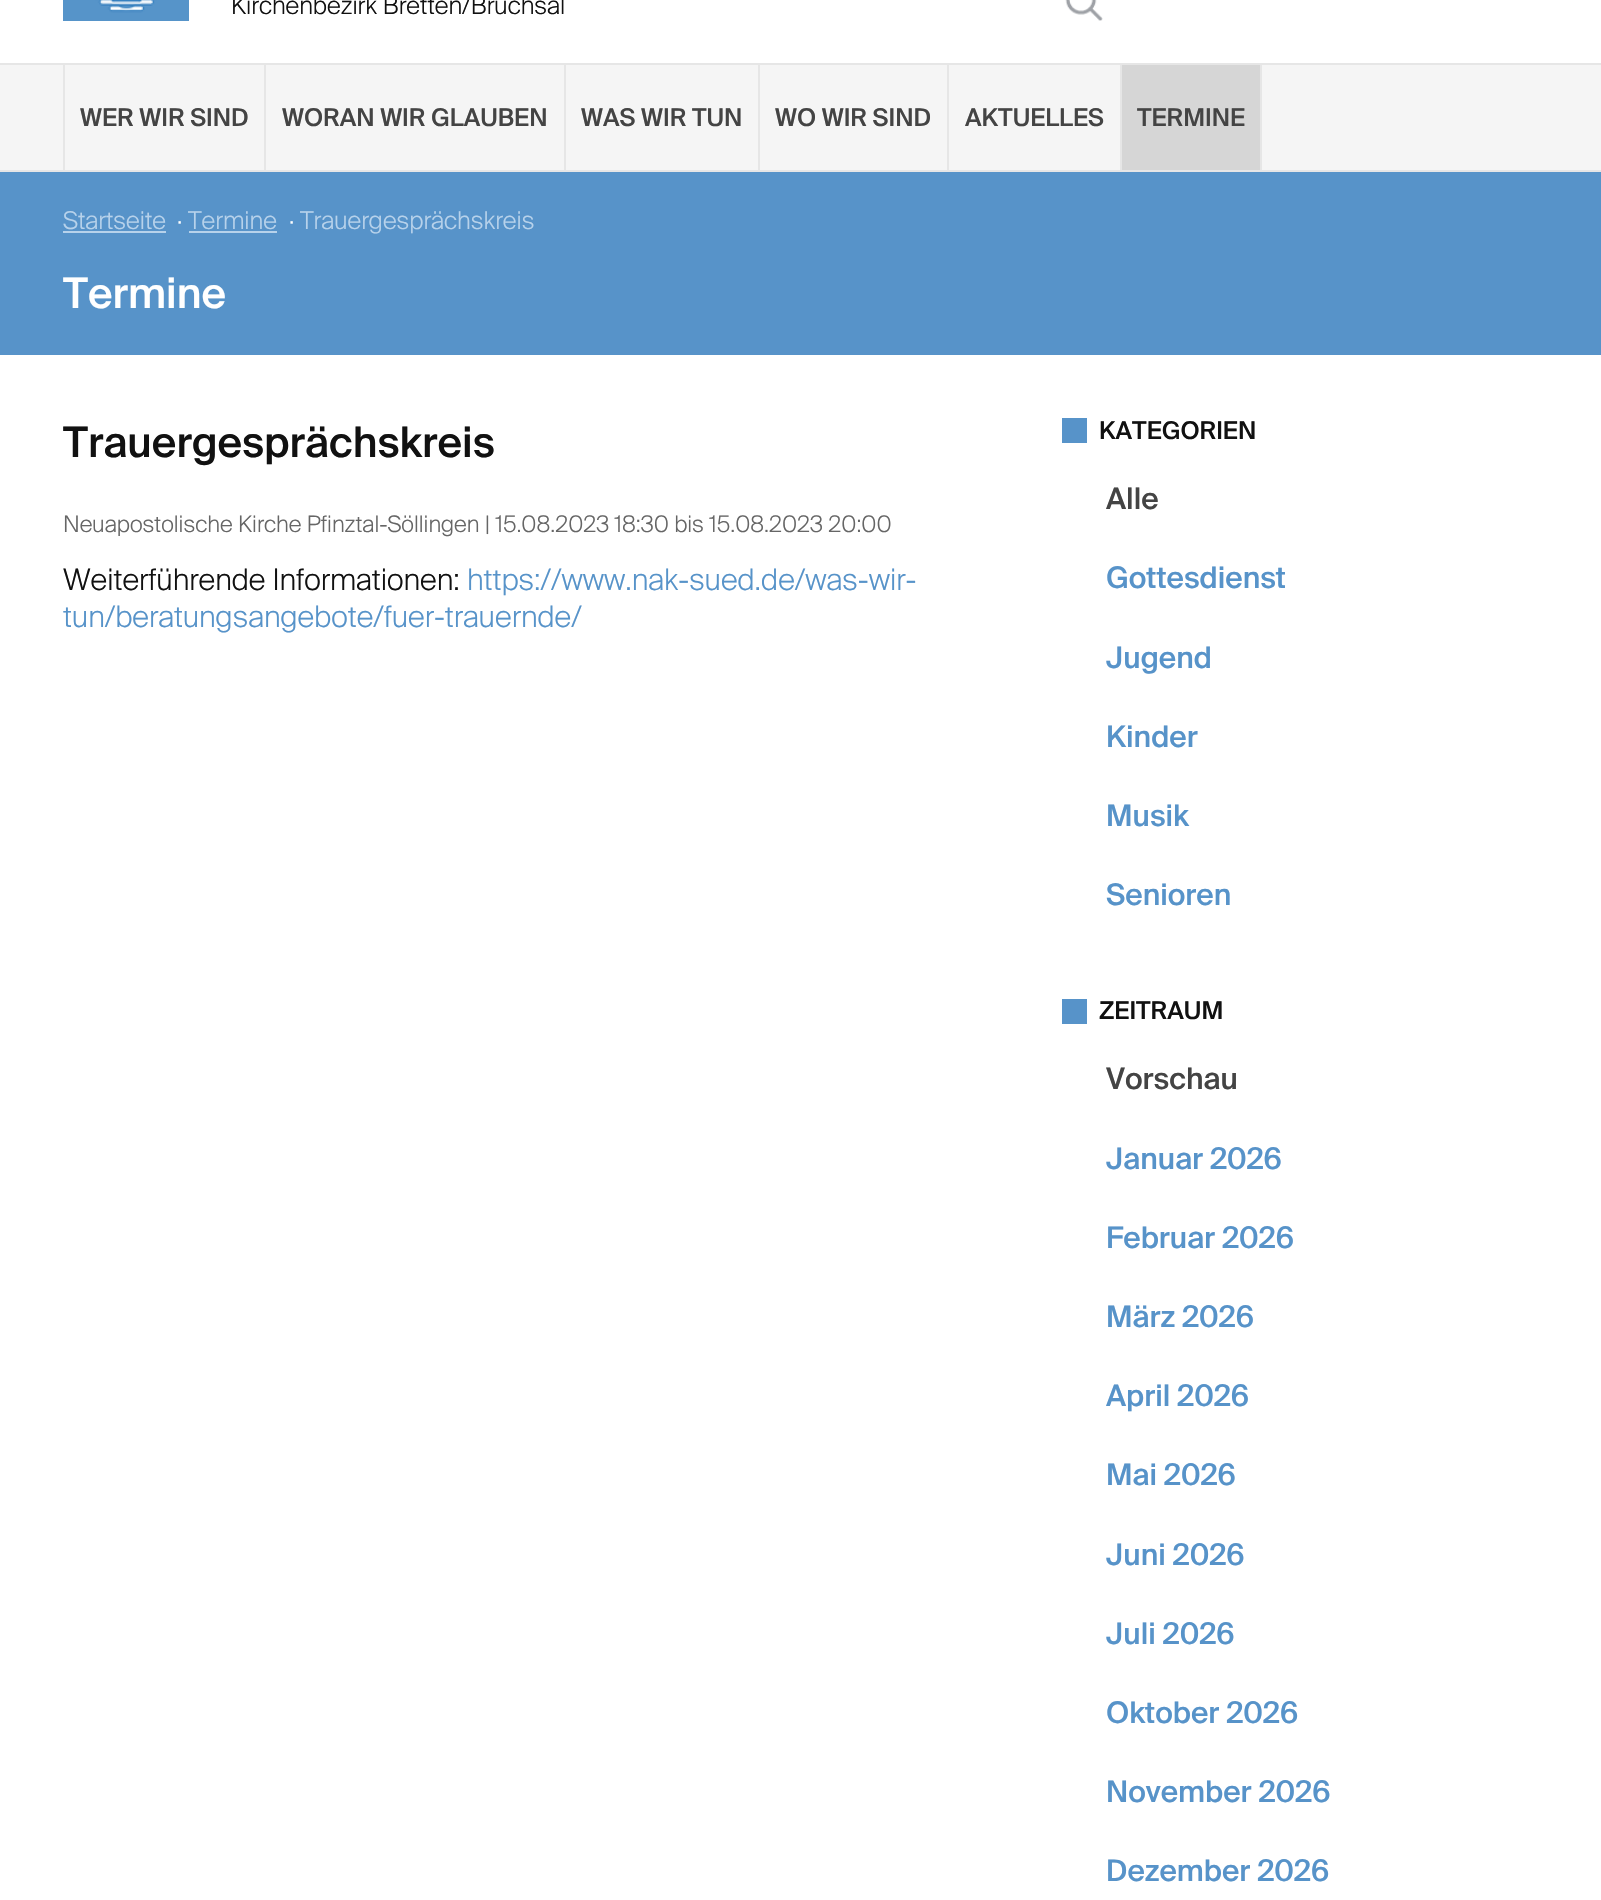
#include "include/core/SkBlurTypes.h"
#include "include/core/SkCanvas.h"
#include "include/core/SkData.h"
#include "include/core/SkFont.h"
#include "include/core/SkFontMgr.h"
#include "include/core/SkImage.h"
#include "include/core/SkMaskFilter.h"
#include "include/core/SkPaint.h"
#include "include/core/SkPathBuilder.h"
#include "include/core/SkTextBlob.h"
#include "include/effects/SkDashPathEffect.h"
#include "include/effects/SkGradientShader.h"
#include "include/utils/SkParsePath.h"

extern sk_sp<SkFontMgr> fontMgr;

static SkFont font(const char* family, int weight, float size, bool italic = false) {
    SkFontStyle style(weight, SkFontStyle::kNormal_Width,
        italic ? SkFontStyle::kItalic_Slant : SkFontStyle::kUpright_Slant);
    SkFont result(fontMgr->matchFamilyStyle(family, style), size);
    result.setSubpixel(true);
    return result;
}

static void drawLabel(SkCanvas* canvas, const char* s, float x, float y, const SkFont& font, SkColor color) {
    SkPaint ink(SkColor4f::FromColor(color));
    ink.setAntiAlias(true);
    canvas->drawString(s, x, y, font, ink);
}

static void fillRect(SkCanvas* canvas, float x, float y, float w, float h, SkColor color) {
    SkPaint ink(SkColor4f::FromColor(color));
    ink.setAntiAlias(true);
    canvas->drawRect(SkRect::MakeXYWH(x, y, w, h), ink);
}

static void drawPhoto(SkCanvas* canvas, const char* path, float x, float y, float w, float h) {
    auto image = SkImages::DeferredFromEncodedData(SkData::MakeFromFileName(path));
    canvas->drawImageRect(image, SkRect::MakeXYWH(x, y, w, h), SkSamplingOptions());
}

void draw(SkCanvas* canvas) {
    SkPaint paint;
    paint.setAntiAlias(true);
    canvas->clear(0xFFFFFFFF);
    drawPhoto(canvas, "assets/img1.png", 63, 0, 126, 21);
    SkFont font1 = font("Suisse", 300, 24.5f);
    drawLabel(canvas, "Kirchenbezirk Bretten/Bruchsal", 231, 14, font1, 0xFF111111);
    drawPhoto(canvas, "assets/img2.png", 1065, 0, 38, 21);
    fillRect(canvas, 0, 65, 1601, 105, 0xFFF5F5F5);
    fillRect(canvas, 0, 63, 1601, 2, 0xFFE6E6E6);
    fillRect(canvas, 0, 170, 1601, 2, 0xFFE6E6E6);
    fillRect(canvas, 63, 65, 2, 105, 0xFFE6E6E6);
    SkFont font2 = font("Suisse", 500, 24.5f);
    drawLabel(canvas, "WER WIR SIND", 80, 126, font2, 0xFF444444);
    fillRect(canvas, 264, 65, 2, 105, 0xFFE6E6E6);
    drawLabel(canvas, "WORAN WIR GLAUBEN", 282, 126, font2, 0xFF444444);
    fillRect(canvas, 564, 65, 2, 105, 0xFFE6E6E6);
    drawLabel(canvas, "WAS WIR TUN", 581, 126, font2, 0xFF444444);
    fillRect(canvas, 758, 65, 2, 105, 0xFFE6E6E6);
    drawLabel(canvas, "WO WIR SIND", 775, 126, font2, 0xFF444444);
    fillRect(canvas, 947, 65, 2, 105, 0xFFE6E6E6);
    drawLabel(canvas, "AKTUELLES", 965, 126, font2, 0xFF444444);
    fillRect(canvas, 1260, 65, 2, 105, 0xFFE6E6E6);
    fillRect(canvas, 1120, 65, 2, 105, 0xFFE6E6E6);
    fillRect(canvas, 1122, 65, 138, 105, 0xFFD6D6D6);
    drawLabel(canvas, "TERMINE", 1137, 126, font2, 0xFF444444);
    fillRect(canvas, 0, 172, 1601, 183, 0xFF5793C9);
    drawLabel(canvas, "Startseite", 63, 229, font1, 0xFFB7D2EB);
    fillRect(canvas, 63, 231, 103, 2, 0xFFB7D2EB);
    drawLabel(canvas, "·", 177, 229, font1, 0xFFFFFFFF);
    drawLabel(canvas, "Termine", 188, 229, font1, 0xFFB7D2EB);
    fillRect(canvas, 189, 231, 88, 2, 0xFFB7D2EB);
    drawLabel(canvas, "·", 289, 229, font1, 0xFFFFFFFF);
    drawLabel(canvas, "Trauergesprächskreis", 300, 229, font1, 0xFFB7D2EB);
    SkFont font3 = font("Suisse", 500, 42);
    drawLabel(canvas, "Termine", 63, 308, font3, 0xFFFFFFFF);
    drawLabel(canvas, "Trauergesprächskreis", 63, 457, font3, 0xFF111111);
    SkFont font4 = font("Suisse", 300, 22.75f);
    drawLabel(canvas, "Neuapostolische Kirche Pfinztal-Söllingen | 15.08.2023 18:30 bis 15.08.2023 20:00", 63, 532, font4, 0xFF666666);
    SkFont font5 = font("Suisse", 300, 29.75f);
    drawLabel(canvas, "Weiterführende Informationen:", 63, 590, font5, 0xFF111111);
    drawLabel(canvas, "https://www.nak-sued.de/was-wir-", 467, 590, font5, 0xFF5793C9);
    drawLabel(canvas, "tun/beratungsangebote/fuer-trauernde/", 63, 627, font5, 0xFF5793C9);
    fillRect(canvas, 1062, 418, 25, 25, 0xFF5793C9);
    drawLabel(canvas, "KATEGORIEN", 1099, 439, font2, 0xFF111111);
    SkFont font6 = font("Suisse", 500, 29.75f);
    drawLabel(canvas, "Alle", 1106, 509, font6, 0xFF444444);
    drawLabel(canvas, "Gottesdienst", 1106, 588, font6, 0xFF5793C9);
    drawLabel(canvas, "Jugend", 1106, 668, font6, 0xFF5793C9);
    drawLabel(canvas, "Kinder", 1106, 747, font6, 0xFF5793C9);
    drawLabel(canvas, "Musik", 1106, 826, font6, 0xFF5793C9);
    drawLabel(canvas, "Senioren", 1106, 905, font6, 0xFF5793C9);
    fillRect(canvas, 1062, 999, 25, 25, 0xFF5793C9);
    drawLabel(canvas, "ZEITRAUM", 1099, 1019, font2, 0xFF111111);
    drawLabel(canvas, "Vorschau", 1106, 1089, font6, 0xFF444444);
    drawLabel(canvas, "Januar 2026", 1106, 1169, font6, 0xFF5793C9);
    drawLabel(canvas, "Februar 2026", 1106, 1248, font6, 0xFF5793C9);
    drawLabel(canvas, "März 2026", 1106, 1327, font6, 0xFF5793C9);
    drawLabel(canvas, "April 2026", 1106, 1406, font6, 0xFF5793C9);
    drawLabel(canvas, "Mai 2026", 1106, 1485, font6, 0xFF5793C9);
    drawLabel(canvas, "Juni 2026", 1106, 1565, font6, 0xFF5793C9);
    drawLabel(canvas, "Juli 2026", 1106, 1644, font6, 0xFF5793C9);
    drawLabel(canvas, "Oktober 2026", 1106, 1723, font6, 0xFF5793C9);
    drawLabel(canvas, "November 2026", 1106, 1802, font6, 0xFF5793C9);
    drawLabel(canvas, "Dezember 2026", 1106, 1881, font6, 0xFF5793C9);
}
